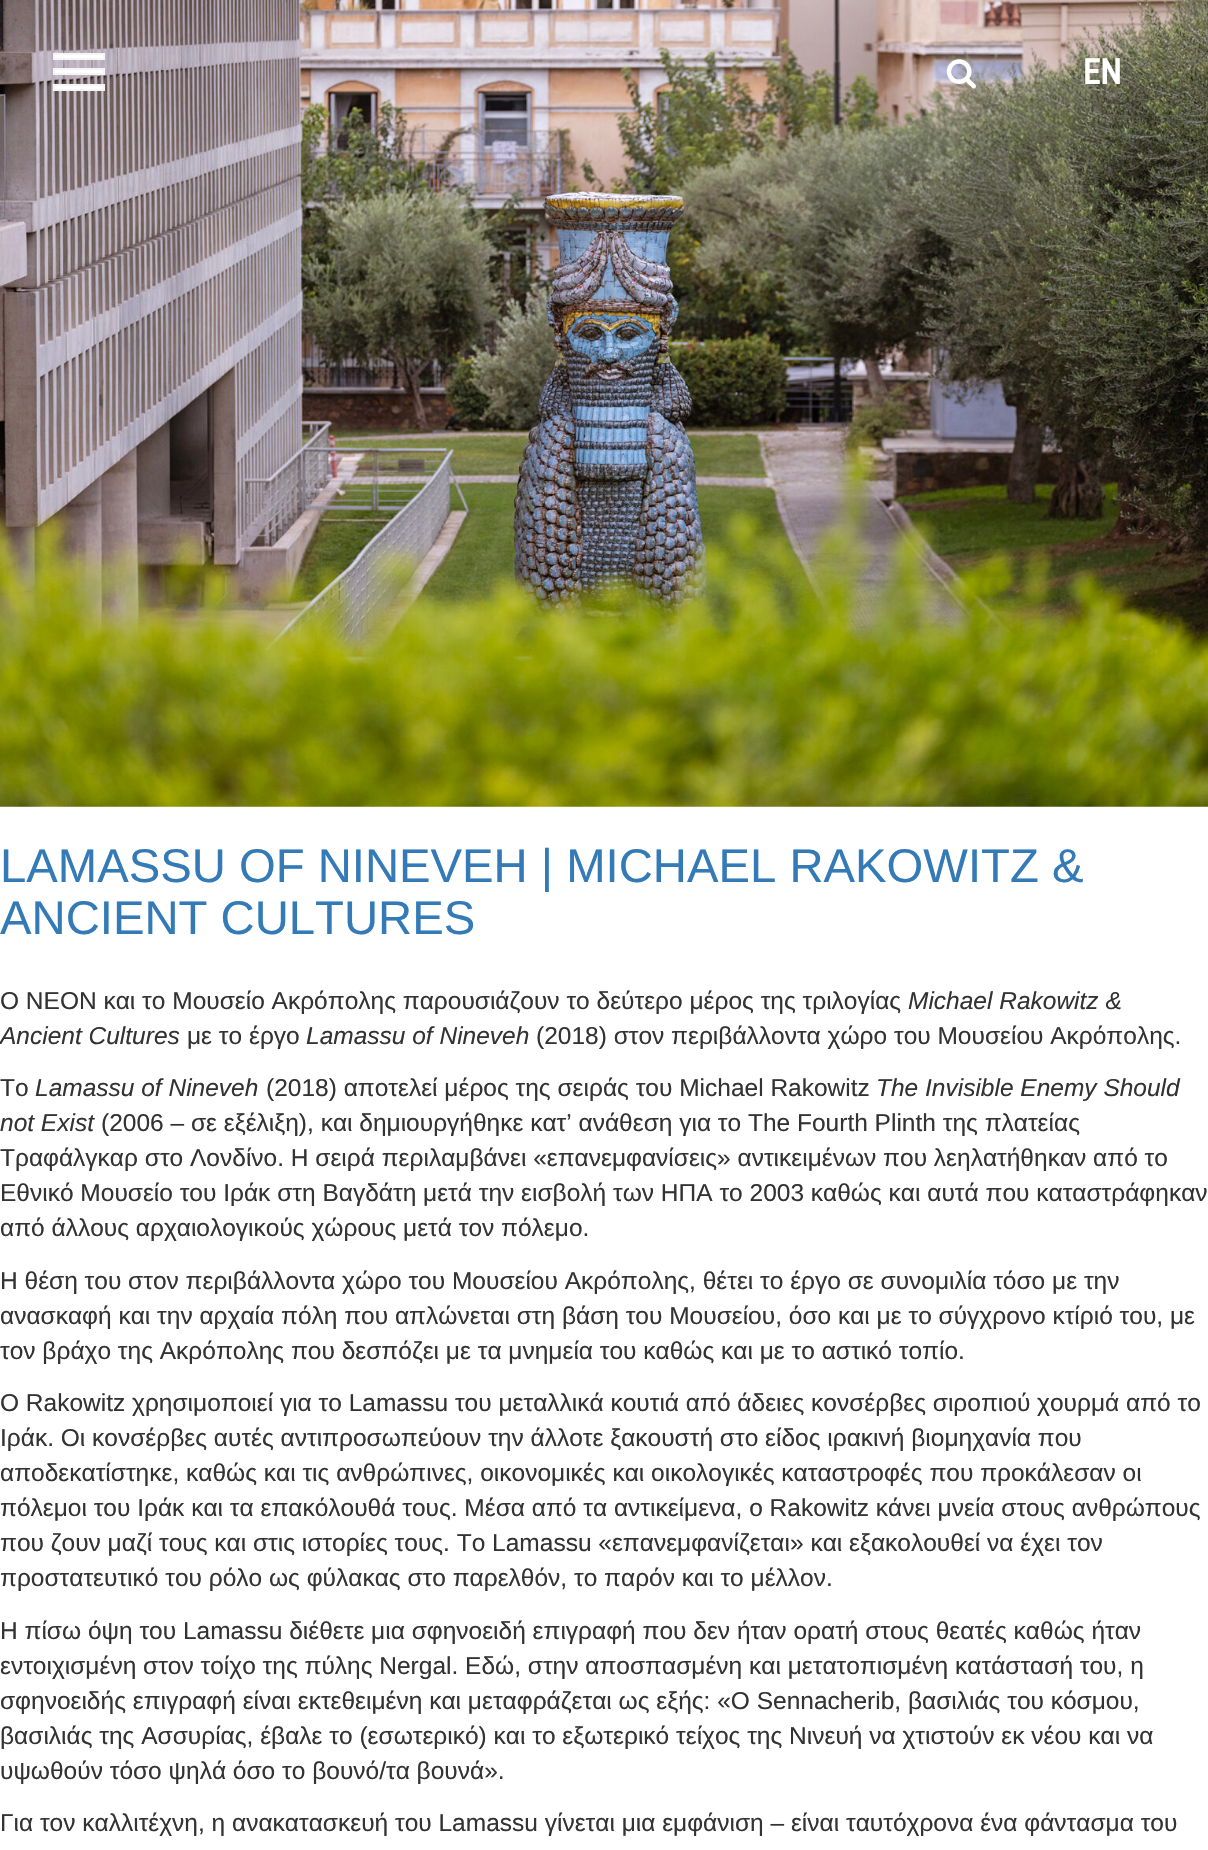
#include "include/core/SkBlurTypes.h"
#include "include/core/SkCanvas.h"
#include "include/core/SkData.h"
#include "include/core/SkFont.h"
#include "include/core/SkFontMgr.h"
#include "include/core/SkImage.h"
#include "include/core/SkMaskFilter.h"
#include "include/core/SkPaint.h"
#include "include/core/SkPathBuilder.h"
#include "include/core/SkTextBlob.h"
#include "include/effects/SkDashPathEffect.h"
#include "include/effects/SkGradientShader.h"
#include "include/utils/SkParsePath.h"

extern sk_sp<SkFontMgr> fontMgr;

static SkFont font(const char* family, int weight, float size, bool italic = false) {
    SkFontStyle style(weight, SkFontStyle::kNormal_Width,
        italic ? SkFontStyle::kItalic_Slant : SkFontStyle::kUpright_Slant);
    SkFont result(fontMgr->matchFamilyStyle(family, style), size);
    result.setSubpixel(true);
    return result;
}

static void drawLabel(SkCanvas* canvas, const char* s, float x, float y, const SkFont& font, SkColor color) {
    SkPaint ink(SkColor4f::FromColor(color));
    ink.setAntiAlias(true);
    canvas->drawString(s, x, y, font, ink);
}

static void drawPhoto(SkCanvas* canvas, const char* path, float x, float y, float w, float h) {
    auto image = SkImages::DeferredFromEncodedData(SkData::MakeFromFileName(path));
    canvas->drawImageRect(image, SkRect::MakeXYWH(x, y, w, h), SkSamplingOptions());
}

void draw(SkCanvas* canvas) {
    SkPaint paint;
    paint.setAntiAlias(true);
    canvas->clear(0xFFFFFFFF);
    drawPhoto(canvas, "assets/img2.png", 0, 0, 1208, 807);
    paint.setColor(0xFFFFFFFF);
    canvas->drawRect(SkRect::MakeXYWH(54, 54, 50, 5), paint);
    paint.setStroke(true);
    paint.setStrokeWidth(2);
    paint.setColor(0xFFF5F5F5);
    canvas->drawRect(SkRect::MakeXYWH(54, 54, 50, 5), paint);
    paint.setStroke(false);
    paint.setColor(0xFFFFFFFF);
    canvas->drawRect(SkRect::MakeXYWH(54, 69, 50, 5), paint);
    paint.setStroke(true);
    paint.setColor(0xFFF5F5F5);
    canvas->drawRect(SkRect::MakeXYWH(54, 69, 50, 5), paint);
    paint.setStroke(false);
    paint.setColor(0xFFFFFFFF);
    canvas->drawRect(SkRect::MakeXYWH(54, 85, 50, 5), paint);
    paint.setStroke(true);
    paint.setColor(0xFFF5F5F5);
    canvas->drawRect(SkRect::MakeXYWH(54, 85, 50, 5), paint);
    drawPhoto(canvas, "assets/img1.png", 946, 59, 30, 30);
    SkFont font1 = font("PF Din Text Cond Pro", 500, 37);
    drawLabel(canvas, "EN", 1083, 84, font1, 0xFFFFFFFF);
    SkFont font2 = font("Liberation Sans", 400, 47.25f);
    drawLabel(canvas, "LAMASSU OF NINEVEH | MICHAEL RAKOWITZ &", 0, 882, font2, 0xFF337AB7);
    drawLabel(canvas, "ANCIENT CULTURES", 0, 934, font2, 0xFF337AB7);
    SkFont font3 = font("Liberation Sans", 400, 24.5f);
    drawLabel(canvas, "O NEON και το Μουσείο Ακρόπολης παρουσιάζουν το δεύτερο μέρος της τριλογίας", 0, 1009, font3, 0xFF333333);
    SkFont font4 = font("Liberation Sans", 400, 24.5f, true);
    drawLabel(canvas, "Michael Rakowitz &", 908, 1009, font4, 0xFF333333);
    drawLabel(canvas, "Ancient Cultures", 0, 1044, font4, 0xFF333333);
    drawLabel(canvas, "με το έργο", 187, 1044, font3, 0xFF333333);
    drawLabel(canvas, "Lamassu of Nineveh", 306, 1044, font4, 0xFF333333);
    drawLabel(canvas, "(2018) στον περιβάλλοντα χώρο του Μουσείου Ακρόπολης.", 536, 1044, font3, 0xFF333333);
    drawLabel(canvas, "Tο", 0, 1096, font3, 0xFF333333);
    drawLabel(canvas, "Lamassu of Nineveh", 35, 1096, font4, 0xFF333333);
    drawLabel(canvas, "(2018) αποτελεί μέρος της σειράς του Michael Rakowitz", 266, 1096, font3, 0xFF333333);
    drawLabel(canvas, "The Invisible Enemy Should", 876, 1096, font4, 0xFF333333);
    drawLabel(canvas, "not Exist", 0, 1131, font4, 0xFF333333);
    drawLabel(canvas, "(2006 – σε εξέλιξη), και δημιουργήθηκε κατ’ ανάθεση για το The Fourth Plinth της πλατείας", 101, 1131, font3, 0xFF333333);
    drawLabel(canvas, "Τραφάλγκαρ στο Λονδίνο. Η σειρά περιλαμβάνει «επανεμφανίσεις» αντικειμένων που λεηλατήθηκαν από το", 0, 1166, font3, 0xFF333333);
    drawLabel(canvas, "Εθνικό Μουσείο του Ιράκ στη Βαγδάτη μετά την εισβολή των ΗΠΑ το 2003 καθώς και αυτά που καταστράφηκαν", 0, 1201, font3, 0xFF333333);
    drawLabel(canvas, "από άλλους αρχαιολογικούς χώρους μετά τον πόλεμο.", 0, 1236, font3, 0xFF333333);
    drawLabel(canvas, "Η θέση του στον περιβάλλοντα χώρο του Μουσείου Ακρόπολης, θέτει το έργο σε συνομιλία τόσο με την", 0, 1289, font3, 0xFF333333);
    drawLabel(canvas, "ανασκαφή και την αρχαία πόλη που απλώνεται στη βάση του Μουσείου, όσο και με το σύγχρονο κτίριό του, με", 0, 1324, font3, 0xFF333333);
    drawLabel(canvas, "τον βράχο της Ακρόπολης που δεσπόζει με τα μνημεία του καθώς και με το αστικό τοπίο.", 0, 1359, font3, 0xFF333333);
    drawLabel(canvas, "Ο Rakowitz χρησιμοποιεί για το Lamassu του μεταλλικά κουτιά από άδειες κονσέρβες σιροπιού χουρμά από το", 0, 1411, font3, 0xFF333333);
    drawLabel(canvas, "Ιράκ. Οι κονσέρβες αυτές αντιπροσωπεύουν την άλλοτε ξακουστή στο είδος ιρακινή βιομηχανία που", 0, 1446, font3, 0xFF333333);
    drawLabel(canvas, "αποδεκατίστηκε, καθώς και τις ανθρώπινες, οικονομικές και οικολογικές καταστροφές που προκάλεσαν οι", 0, 1481, font3, 0xFF333333);
    drawLabel(canvas, "πόλεμοι του Ιράκ και τα επακόλουθά τους. Μέσα από τα αντικείμενα, ο Rakowitz κάνει μνεία στους ανθρώπους", 0, 1516, font3, 0xFF333333);
    drawLabel(canvas, "που ζουν μαζί τους και στις ιστορίες τους. Το Lamassu «επανεμφανίζεται» και εξακολουθεί να έχει τον", 0, 1551, font3, 0xFF333333);
    drawLabel(canvas, "προστατευτικό του ρόλο ως φύλακας στο παρελθόν, το παρόν και το μέλλον.", 0, 1586, font3, 0xFF333333);
    drawLabel(canvas, "Η πίσω όψη του Lamassu διέθετε μια σφηνοειδή επιγραφή που δεν ήταν ορατή στους θεατές καθώς ήταν", 0, 1639, font3, 0xFF333333);
    drawLabel(canvas, "εντοιχισμένη στον τοίχο της πύλης Nergal. Εδώ, στην αποσπασμένη και μετατοπισμένη κατάστασή του, η", 0, 1674, font3, 0xFF333333);
    drawLabel(canvas, "σφηνοειδής επιγραφή είναι εκτεθειμένη και μεταφράζεται ως εξής: «Ο Sennacherib, βασιλιάς του κόσμου,", 0, 1709, font3, 0xFF333333);
    drawLabel(canvas, "βασιλιάς της Ασσυρίας, έβαλε το (εσωτερικό) και το εξωτερικό τείχος της Νινευή να χτιστούν εκ νέου και να", 0, 1744, font3, 0xFF333333);
    drawLabel(canvas, "υψωθούν τόσο ψηλά όσο το βουνό/τα βουνά».", 0, 1779, font3, 0xFF333333);
    drawLabel(canvas, "Για τον καλλιτέχνη, η ανακατασκευή του Lamassu γίνεται μια εμφάνιση – είναι ταυτόχρονα ένα φάντασμα του", 0, 1831, font3, 0xFF333333);
}
